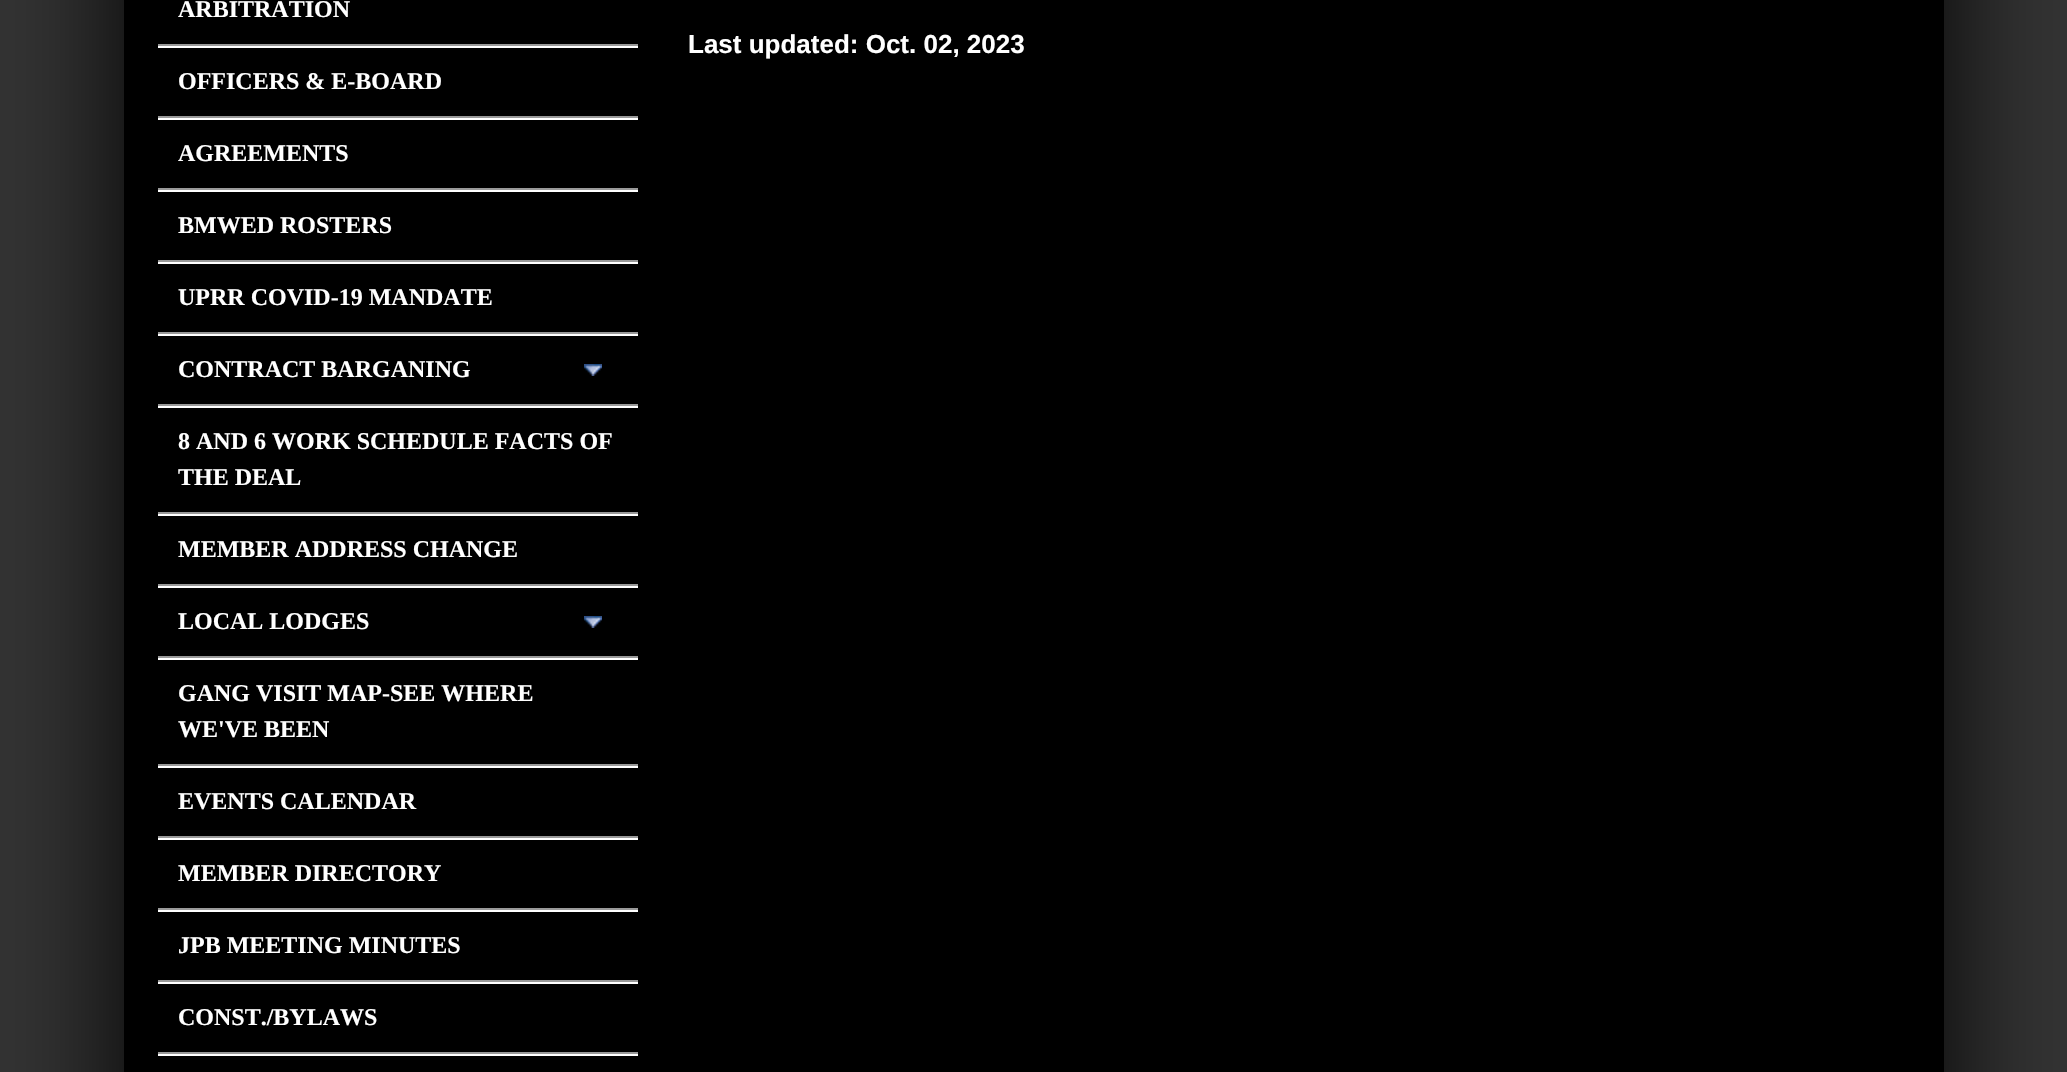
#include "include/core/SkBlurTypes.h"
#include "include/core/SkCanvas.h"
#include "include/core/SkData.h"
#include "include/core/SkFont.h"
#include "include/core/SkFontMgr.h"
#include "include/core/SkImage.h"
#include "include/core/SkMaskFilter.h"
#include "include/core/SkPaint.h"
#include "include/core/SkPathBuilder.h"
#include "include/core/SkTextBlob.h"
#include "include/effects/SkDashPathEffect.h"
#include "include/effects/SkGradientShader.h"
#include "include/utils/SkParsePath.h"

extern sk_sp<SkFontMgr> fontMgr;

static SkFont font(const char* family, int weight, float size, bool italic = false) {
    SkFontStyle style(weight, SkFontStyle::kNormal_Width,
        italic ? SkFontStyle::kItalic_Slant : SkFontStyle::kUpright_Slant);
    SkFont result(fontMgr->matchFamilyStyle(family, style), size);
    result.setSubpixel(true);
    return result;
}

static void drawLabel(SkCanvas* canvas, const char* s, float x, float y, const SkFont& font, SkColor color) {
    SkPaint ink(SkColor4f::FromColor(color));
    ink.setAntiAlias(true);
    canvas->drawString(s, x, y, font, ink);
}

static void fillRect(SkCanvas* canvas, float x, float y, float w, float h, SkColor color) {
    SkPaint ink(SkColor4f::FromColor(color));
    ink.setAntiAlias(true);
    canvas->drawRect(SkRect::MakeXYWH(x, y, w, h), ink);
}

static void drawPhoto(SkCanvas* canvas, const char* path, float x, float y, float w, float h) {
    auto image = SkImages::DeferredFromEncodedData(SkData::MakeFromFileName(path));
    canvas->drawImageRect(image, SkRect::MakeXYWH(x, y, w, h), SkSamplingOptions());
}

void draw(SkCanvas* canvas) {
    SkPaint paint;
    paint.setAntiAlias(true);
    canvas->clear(0xFF333333);
    paint.setColor(0xFF000000);
    paint.setMaskFilter(SkMaskFilter::MakeBlur(kNormal_SkBlurStyle, 65));
    canvas->drawRoundRect(SkRect::MakeXYWH(124, -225, 1820, 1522), 30, 30, paint);
    paint.setMaskFilter(nullptr);
    fillRect(canvas, 124, 0, 1820, 1072, 0xFF000000);
    fillRect(canvas, 158, 44, 480, 2, 0xFF999999);
    SkFont font1 = font("Liberation Serif", 700, 24);
    drawLabel(canvas, "ARBITRATION", 178, 17, font1, 0xFFFFFFFF);
    fillRect(canvas, 158, 46, 480, 2, 0xFFFFFFFF);
    fillRect(canvas, 158, 116, 480, 2, 0xFF999999);
    drawLabel(canvas, "OFFICERS & E-BOARD", 178, 89, font1, 0xFFFFFFFF);
    fillRect(canvas, 158, 118, 480, 2, 0xFFFFFFFF);
    fillRect(canvas, 158, 188, 480, 2, 0xFF999999);
    drawLabel(canvas, "AGREEMENTS", 178, 161, font1, 0xFFFFFFFF);
    fillRect(canvas, 158, 190, 480, 2, 0xFFFFFFFF);
    fillRect(canvas, 158, 260, 480, 2, 0xFF999999);
    drawLabel(canvas, "BMWED ROSTERS", 178, 233, font1, 0xFFFFFFFF);
    fillRect(canvas, 158, 262, 480, 2, 0xFFFFFFFF);
    fillRect(canvas, 158, 332, 480, 2, 0xFF999999);
    drawLabel(canvas, "UPRR COVID-19 MANDATE", 178, 305, font1, 0xFFFFFFFF);
    drawPhoto(canvas, "assets/img1.png", 584, 364, 18, 12);
    fillRect(canvas, 158, 334, 480, 2, 0xFFFFFFFF);
    fillRect(canvas, 158, 404, 480, 2, 0xFF999999);
    drawLabel(canvas, "CONTRACT BARGANING", 178, 377, font1, 0xFFFFFFFF);
    fillRect(canvas, 158, 406, 480, 2, 0xFFFFFFFF);
    fillRect(canvas, 158, 512, 480, 2, 0xFF999999);
    drawLabel(canvas, "8 AND 6 WORK SCHEDULE FACTS OF", 178, 449, font1, 0xFFFFFFFF);
    drawLabel(canvas, "THE DEAL", 178, 485, font1, 0xFFFFFFFF);
    fillRect(canvas, 158, 514, 480, 2, 0xFFFFFFFF);
    fillRect(canvas, 158, 584, 480, 2, 0xFF999999);
    drawLabel(canvas, "MEMBER ADDRESS CHANGE", 178, 557, font1, 0xFFFFFFFF);
    drawPhoto(canvas, "assets/img1.png", 584, 616, 18, 12);
    fillRect(canvas, 158, 586, 480, 2, 0xFFFFFFFF);
    fillRect(canvas, 158, 656, 480, 2, 0xFF999999);
    drawLabel(canvas, "LOCAL LODGES", 178, 629, font1, 0xFFFFFFFF);
    fillRect(canvas, 158, 658, 480, 2, 0xFFFFFFFF);
    fillRect(canvas, 158, 764, 480, 2, 0xFF999999);
    drawLabel(canvas, "GANG VISIT MAP-SEE WHERE", 178, 701, font1, 0xFFFFFFFF);
    drawLabel(canvas, "WE'VE BEEN", 178, 737, font1, 0xFFFFFFFF);
    fillRect(canvas, 158, 766, 480, 2, 0xFFFFFFFF);
    fillRect(canvas, 158, 836, 480, 2, 0xFF999999);
    drawLabel(canvas, "EVENTS CALENDAR", 178, 809, font1, 0xFFFFFFFF);
    fillRect(canvas, 158, 838, 480, 2, 0xFFFFFFFF);
    fillRect(canvas, 158, 908, 480, 2, 0xFF999999);
    drawLabel(canvas, "MEMBER DIRECTORY", 178, 881, font1, 0xFFFFFFFF);
    fillRect(canvas, 158, 910, 480, 2, 0xFFFFFFFF);
    fillRect(canvas, 158, 980, 480, 2, 0xFF999999);
    drawLabel(canvas, "JPB MEETING MINUTES", 178, 953, font1, 0xFFFFFFFF);
    fillRect(canvas, 158, 982, 480, 2, 0xFFFFFFFF);
    fillRect(canvas, 158, 1052, 480, 2, 0xFF999999);
    drawLabel(canvas, "CONST./BYLAWS", 178, 1025, font1, 0xFFFFFFFF);
    fillRect(canvas, 158, 1054, 480, 2, 0xFFFFFFFF);
    SkFont font2 = font("Liberation Sans", 700, 26);
    drawLabel(canvas, "Last updated: Oct. 02, 2023", 688, 53, font2, 0xFFFFFFFF);
}
